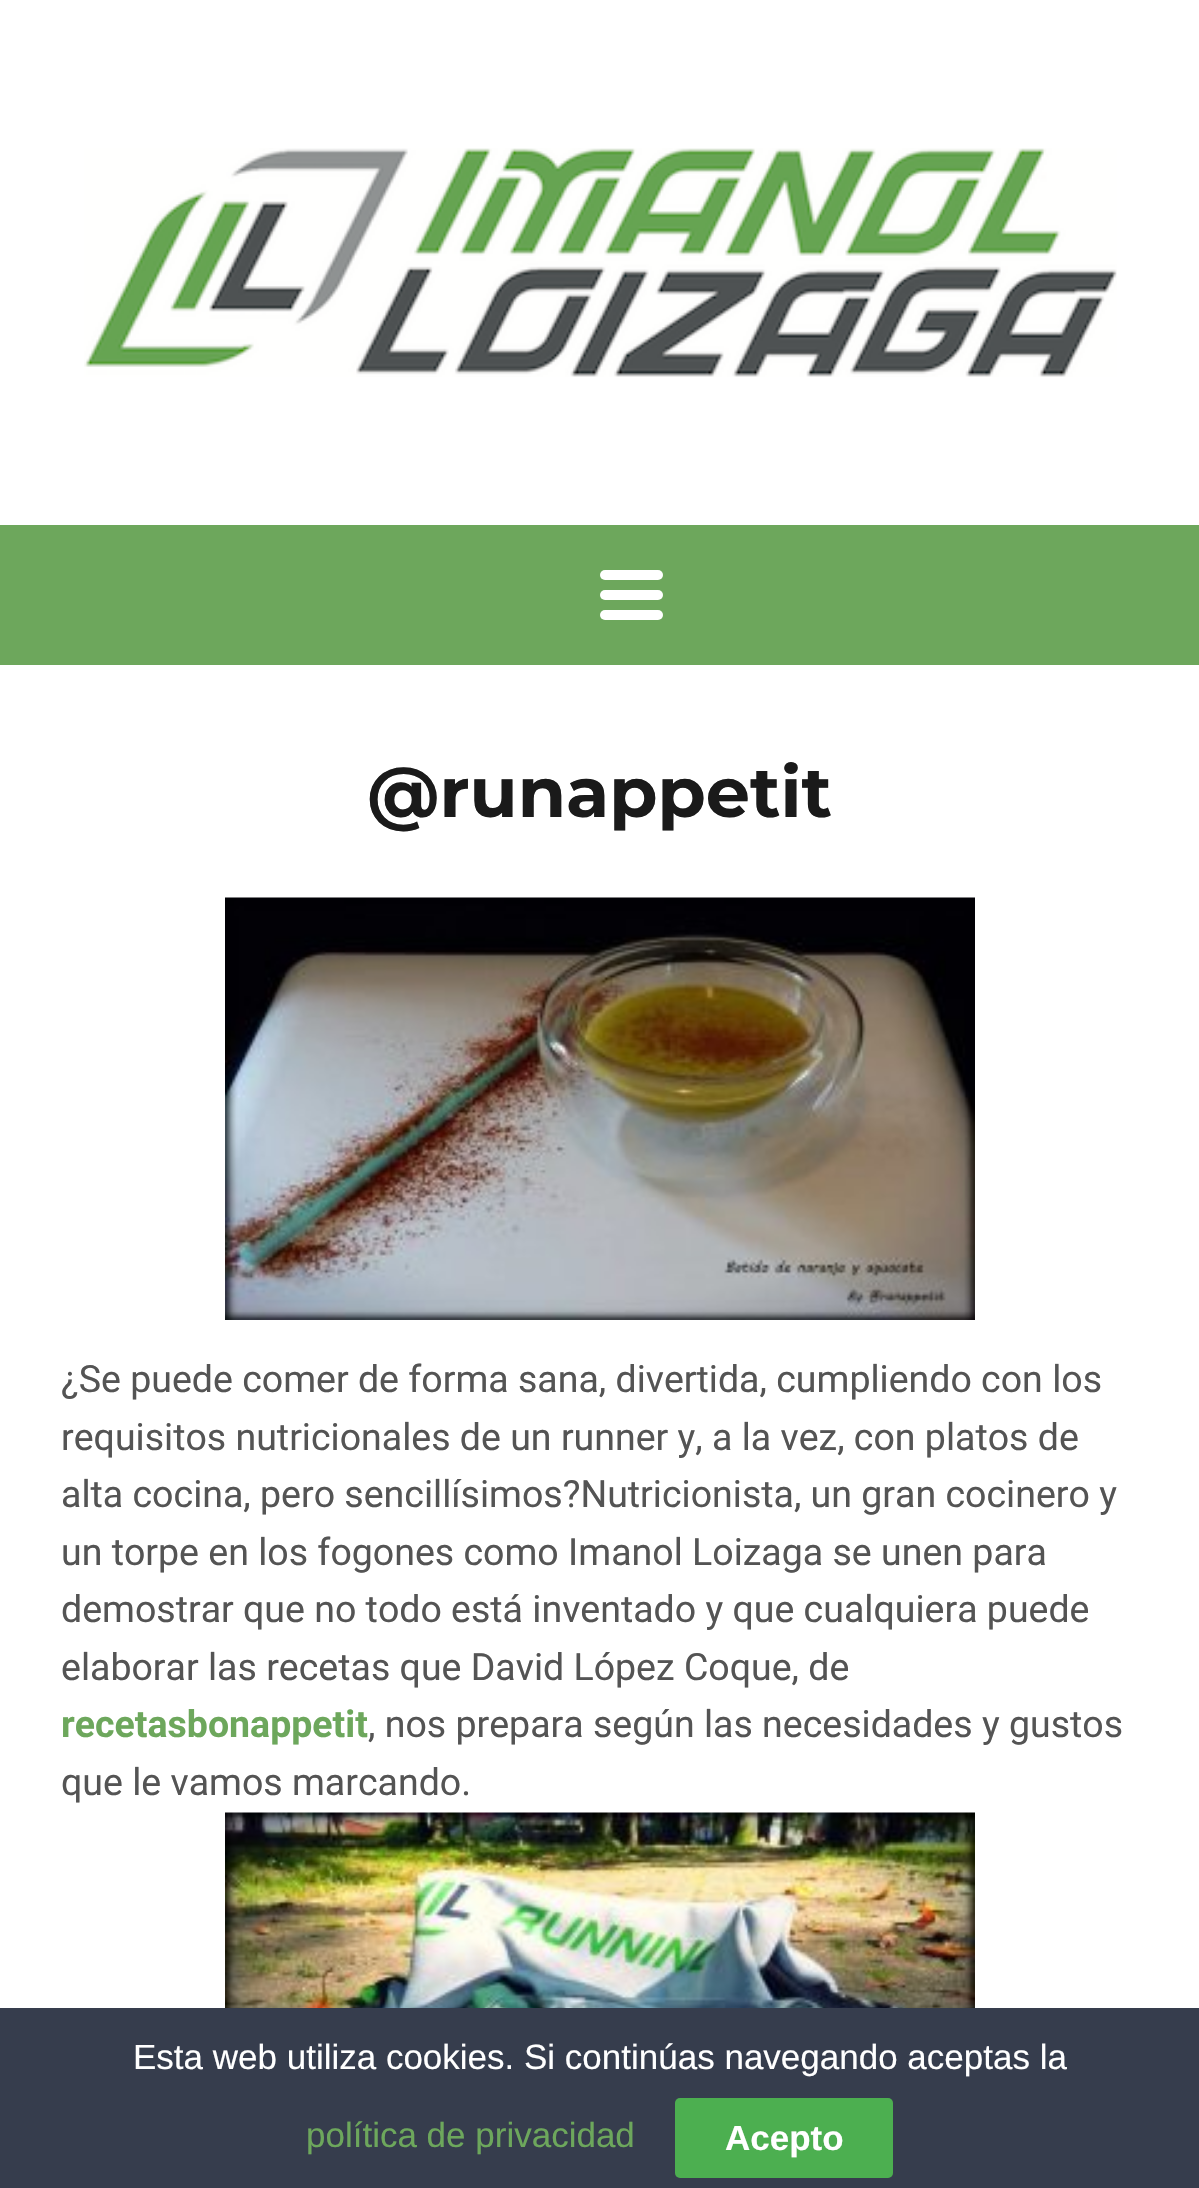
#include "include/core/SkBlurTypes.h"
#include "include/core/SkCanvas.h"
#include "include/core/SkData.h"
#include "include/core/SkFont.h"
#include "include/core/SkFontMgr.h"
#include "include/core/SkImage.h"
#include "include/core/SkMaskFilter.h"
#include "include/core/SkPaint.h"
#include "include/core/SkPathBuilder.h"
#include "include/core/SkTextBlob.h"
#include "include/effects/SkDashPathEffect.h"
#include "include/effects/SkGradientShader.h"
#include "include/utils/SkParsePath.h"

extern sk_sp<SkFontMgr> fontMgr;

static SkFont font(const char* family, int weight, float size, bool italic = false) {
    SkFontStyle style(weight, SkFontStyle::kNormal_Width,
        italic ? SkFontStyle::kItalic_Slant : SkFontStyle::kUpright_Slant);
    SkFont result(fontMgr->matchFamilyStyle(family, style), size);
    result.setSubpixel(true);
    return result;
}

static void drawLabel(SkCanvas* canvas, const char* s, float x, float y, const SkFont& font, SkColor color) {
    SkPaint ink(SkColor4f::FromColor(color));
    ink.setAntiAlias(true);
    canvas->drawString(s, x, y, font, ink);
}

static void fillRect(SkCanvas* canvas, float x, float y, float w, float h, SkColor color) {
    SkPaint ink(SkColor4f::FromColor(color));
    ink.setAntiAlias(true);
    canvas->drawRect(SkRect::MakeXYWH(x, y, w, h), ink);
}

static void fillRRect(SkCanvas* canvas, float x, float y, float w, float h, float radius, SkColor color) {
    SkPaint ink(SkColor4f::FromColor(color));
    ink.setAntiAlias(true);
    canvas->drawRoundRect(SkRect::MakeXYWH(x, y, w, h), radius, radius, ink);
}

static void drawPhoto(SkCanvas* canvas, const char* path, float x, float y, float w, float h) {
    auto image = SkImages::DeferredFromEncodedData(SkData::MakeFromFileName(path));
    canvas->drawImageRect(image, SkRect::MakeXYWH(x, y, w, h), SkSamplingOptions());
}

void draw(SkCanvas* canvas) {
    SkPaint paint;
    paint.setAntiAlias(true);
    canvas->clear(0xFFFFFFFF);
    drawPhoto(canvas, "assets/img1.png", 84, 148, 1033, 229);
    fillRect(canvas, 0, 525, 1199, 140, 0xFF6DA75C);
    fillRRect(canvas, 600, 590, 63, 10, 5, 0xFFFFFFFF);
    fillRRect(canvas, 600, 570, 63, 10, 5, 0xFFFFFFFF);
    fillRRect(canvas, 600, 610, 63, 10, 5, 0xFFFFFFFF);
    SkFont font1 = font("Montserrat", 700, 70);
    drawLabel(canvas, "@runappetit", 367, 817, font1, 0xFF1A1A1A);
    drawPhoto(canvas, "assets/img2.png", 225, 897, 750, 423);
    SkFont font2 = font("Roboto", 400, 37.5f);
    drawLabel(canvas, "¿Se puede comer de forma sana, divertida, cumpliendo con los", 61, 1392, font2, 0xFF545454);
    drawLabel(canvas, "requisitos nutricionales de un runner y, a la vez, con platos de", 61, 1450, font2, 0xFF545454);
    drawLabel(canvas, "alta cocina, pero sencillísimos?Nutricionista, un gran cocinero y", 61, 1507, font2, 0xFF545454);
    drawLabel(canvas, "un torpe en los fogones como Imanol Loizaga se unen para", 61, 1565, font2, 0xFF545454);
    drawLabel(canvas, "demostrar que no todo está inventado y que cualquiera puede", 61, 1622, font2, 0xFF545454);
    drawLabel(canvas, "elaborar las recetas que David López Coque, de", 61, 1680, font2, 0xFF545454);
    SkFont font3 = font("Roboto", 700, 37.5f);
    drawLabel(canvas, "recetasbonappetit", 61, 1737, font3, 0xFF6DA75C);
    drawLabel(canvas, ", nos prepara según las necesidades y gustos", 368, 1737, font2, 0xFF545454);
    drawLabel(canvas, "que le vamos marcando.", 61, 1795, font2, 0xFF545454);
    drawPhoto(canvas, "assets/img3.png", 225, 1812, 750, 196);
    fillRect(canvas, 0, 2008, 1199, 180, 0xFF363D4D);
    SkFont font4 = font("Liberation Sans", 400, 35);
    drawLabel(canvas, "Esta web utiliza cookies. Si continúas navegando aceptas la", 133, 2069, font4, 0xFFFFFFFF);
    drawLabel(canvas, "política de privacidad", 306, 2147, font4, 0xFF6DA75C);
    fillRRect(canvas, 675, 2098, 218, 80, 5, 0xFF4CAF50);
    SkFont font5 = font("Liberation Sans", 700, 35);
    drawLabel(canvas, "Acepto", 725, 2150, font5, 0xFFFFFFFF);
}
